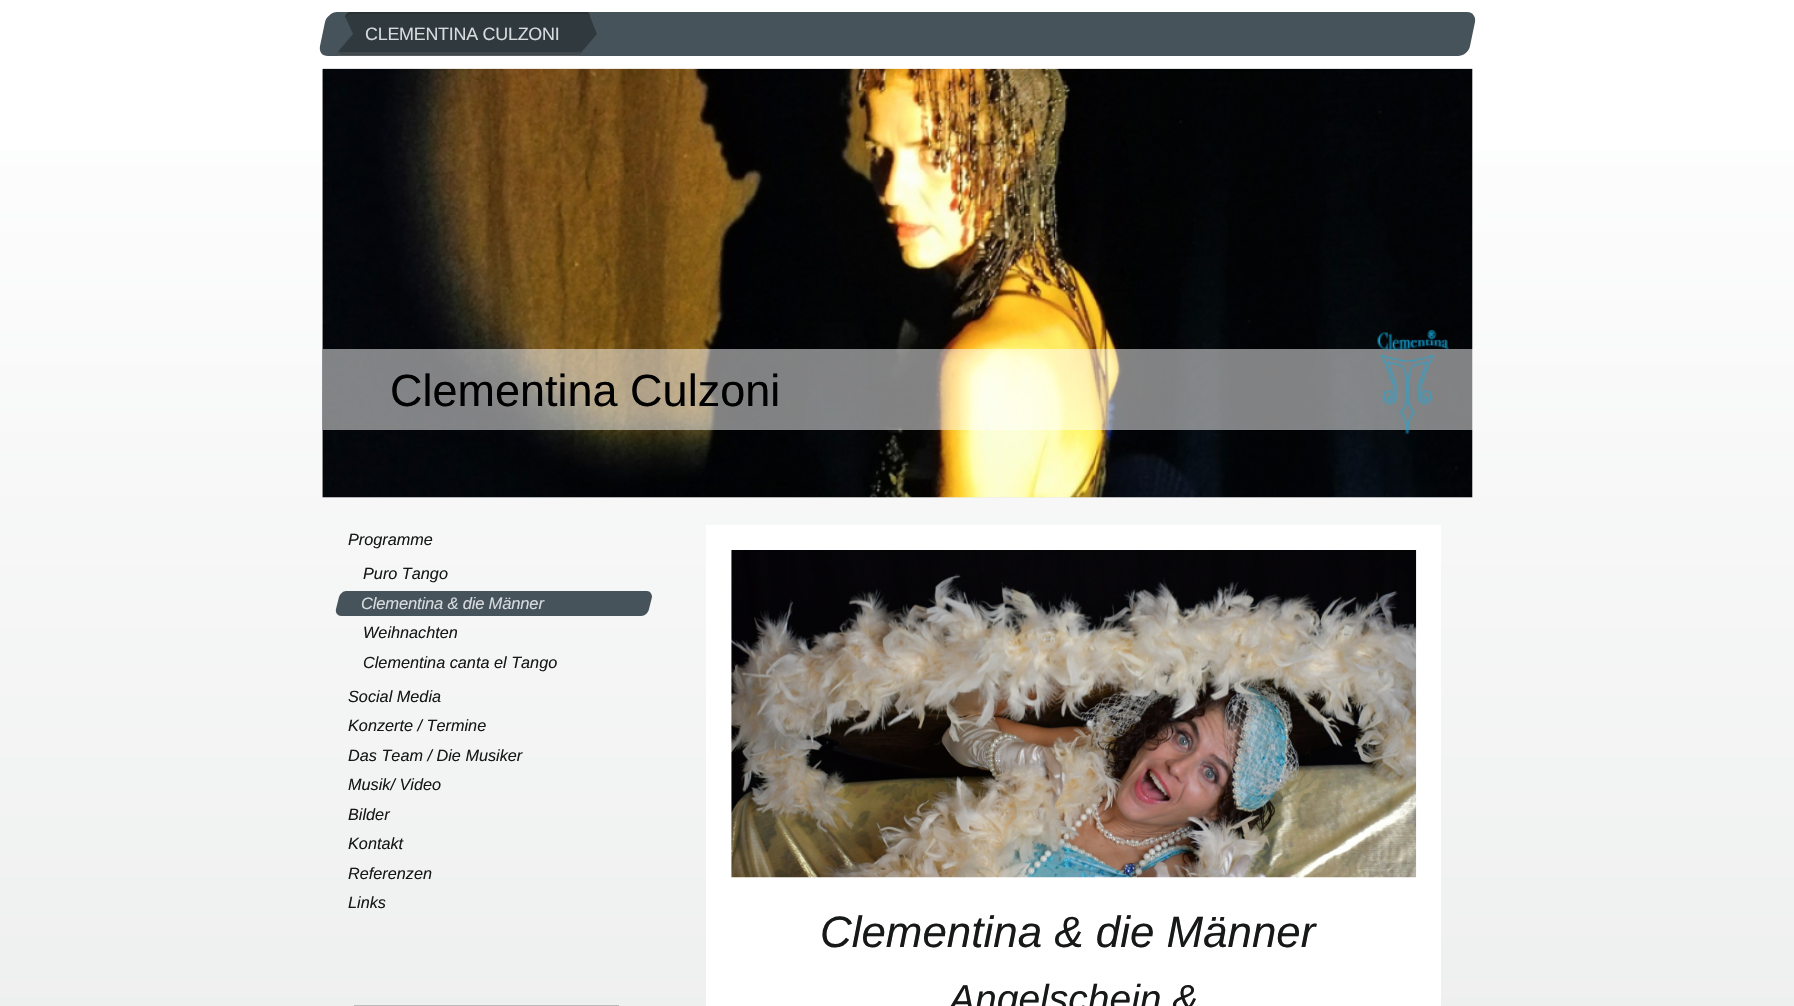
#include "include/core/SkBlurTypes.h"
#include "include/core/SkCanvas.h"
#include "include/core/SkData.h"
#include "include/core/SkFont.h"
#include "include/core/SkFontMgr.h"
#include "include/core/SkImage.h"
#include "include/core/SkMaskFilter.h"
#include "include/core/SkPaint.h"
#include "include/core/SkPathBuilder.h"
#include "include/core/SkTextBlob.h"
#include "include/effects/SkDashPathEffect.h"
#include "include/effects/SkGradientShader.h"
#include "include/utils/SkParsePath.h"

extern sk_sp<SkFontMgr> fontMgr;

static SkFont font(const char* family, int weight, float size, bool italic = false) {
    SkFontStyle style(weight, SkFontStyle::kNormal_Width,
        italic ? SkFontStyle::kItalic_Slant : SkFontStyle::kUpright_Slant);
    SkFont result(fontMgr->matchFamilyStyle(family, style), size);
    result.setSubpixel(true);
    return result;
}

static void drawLabel(SkCanvas* canvas, const char* s, float x, float y, const SkFont& font, SkColor color) {
    SkPaint ink(SkColor4f::FromColor(color));
    ink.setAntiAlias(true);
    canvas->drawString(s, x, y, font, ink);
}

static void drawTracked(SkCanvas* canvas, const char* s, float x, float y, const SkFont& font, const SkPaint& ink, float letter, float word) {
    std::vector<SkGlyphID> glyphs(font.countText(s, strlen(s), SkTextEncoding::kUTF8));
    std::vector<float> xs(glyphs.size());
    font.textToGlyphs(s, strlen(s), SkTextEncoding::kUTF8, glyphs);
    font.getXPos(glyphs, xs, x);
    float extra = 0;
    for (size_t i = 0; i < glyphs.size(); i++) {
        xs[i] += extra;
        extra += letter + word * (glyphs[i] == font.unicharToGlyph(' '));
    }
    canvas->drawTextBlob(SkTextBlob::MakeFromPosHGlyphs(glyphs, xs, y, font), 0, 0, ink);
}

static void fillRect(SkCanvas* canvas, float x, float y, float w, float h, SkColor color) {
    SkPaint ink(SkColor4f::FromColor(color));
    ink.setAntiAlias(true);
    canvas->drawRect(SkRect::MakeXYWH(x, y, w, h), ink);
}

static void drawPhoto(SkCanvas* canvas, const char* path, float x, float y, float w, float h) {
    auto image = SkImages::DeferredFromEncodedData(SkData::MakeFromFileName(path));
    canvas->drawImageRect(image, SkRect::MakeXYWH(x, y, w, h), SkSamplingOptions());
}

static SkPath parsePath(const char* data, bool evenOdd = false) {
    SkPath result = *SkParsePath::FromSVGString(data);
    if (evenOdd) result.setFillType(SkPathFillType::kEvenOdd);
    return result;
}

void draw(SkCanvas* canvas) {
    SkPaint paint;
    paint.setAntiAlias(true);
    canvas->clear(0xFFFFFFFF);
    {
        const SkColor colors[] = {0xFFFFFFFF, 0xFFD2D6D4};
        const float stops[] = {0, 1};
        const SkPoint ends[] = {{0, 0}, {0, 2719}};
        paint.setShader(SkGradientShader::MakeLinear(ends, colors, stops, 2, SkTileMode::kClamp));
        paint.setAlpha(255);
    }
    canvas->drawRect(SkRect::MakeXYWH(0, 151, 1794, 855), paint);
    paint.setShader(nullptr);
    paint.setColor(0xFF46535B);
    canvas->drawPath(parsePath("M337 12H1467C1473 12 1476 17 1475 22L1470 46C1469 52 1463 56 1458 56H328C322 56 319 52 320 46L325 22C326 17 332 12 337 12Z"), paint);
    paint.setColor(0xFF30393E);
    canvas->drawPath(parsePath("M350 12H587C589 12 590 14 590 16L582 52C581 54 579 56 577 56H340C338 56 337 54 337 52L345 16C346 14 348 12 350 12Z"), paint);
    paint.setColor(0x26000000);
    canvas->drawPath(parsePath("M351 14H589C589 13 588 12 587 12H350C348 12 346 14 345 16L337 52C337 54 337 55 338 55V54L346 18C347 15 349 14 351 14Z"), paint);
    paint.setColor(0x14FFFFFF);
    canvas->drawPath(parsePath("M338 49C338 52 336 55 339 56H578C581 55 582 53 582 50C581 51 580 52 578 52H341C339 52 338 51 338 49ZM586 32C587 29 590 17 590 15Z", true), paint);
    paint.setColor(0x1AFFFFFF);
    canvas->drawPath(parsePath("M341 35L337 52C337 54 338 56 340 56H577C579 56 581 54 582 52L586 33L582 51C582 53 580 55 578 55H341C339 55 337 53 338 51Z"), paint);
    paint.setColor(0xFF46535B);
    canvas->drawPath(parsePath("M336 54L344 14L353 34Z"), paint);
    SkFont font1 = font("Liberation Sans", 400, 17.9f);
    paint.setColor(0xFFD7DBDE);
    drawTracked(canvas, "CLEMENTINA CULZONI", 365, 40, font1, paint, -0.25f, 0);
    paint.setColor(0xFF30393E);
    canvas->drawPath(parsePath("M580 54L589 14L597 34Z"), paint);
    drawPhoto(canvas, "assets/img1.png", 322, 68, 1150, 430);
    fillRect(canvas, 323, 69, 1150, 429, 0xFFEEEEEE);
    drawPhoto(canvas, "assets/img2.png", 322, 68, 1151, 430);
    fillRect(canvas, 323, 349, 1150, 81, 0x80FFFFFF);
    drawPhoto(canvas, "assets/img3.png", 1377, 330, 72, 104);
    SkFont font2 = font("Liberation Sans", 400, 45);
    drawLabel(canvas, "Clementina Culzoni", 390, 406, font2, 0xFF000000);
    SkFont font3 = font("Liberation Sans", 400, 16.25f, true);
    drawLabel(canvas, "Programme", 348, 545, font3, 0xFF171818);
    drawLabel(canvas, "Puro Tango", 363, 579, font3, 0xFF171818);
    paint.setColor(0xFF46535B);
    canvas->drawPath(parsePath("M346 591H647C650 591 652 594 652 597L649 609C648 613 645 616 641 616H341C338 616 335 613 336 609L339 597C340 594 343 591 346 591Z"), paint);
    SkFont font4 = font("Liberation Sans", 400, 16.6f, true);
    paint.setColor(0xFFD7DBDE);
    drawTracked(canvas, "Clementina & die Männer", 361, 609, font4, paint, -0.2f, 0);
    drawLabel(canvas, "Weihnachten", 363, 638, font3, 0xFF171818);
    drawLabel(canvas, "Clementina canta el Tango", 363, 668, font3, 0xFF171818);
    drawLabel(canvas, "Social Media", 348, 702, font3, 0xFF171818);
    drawLabel(canvas, "Konzerte / Termine", 348, 731, font3, 0xFF171818);
    drawLabel(canvas, "Das Team / Die Musiker", 348, 761, font3, 0xFF171818);
    drawLabel(canvas, "Musik/ Video", 348, 790, font3, 0xFF171818);
    drawLabel(canvas, "Bilder", 348, 820, font3, 0xFF171818);
    drawLabel(canvas, "Kontakt", 348, 849, font3, 0xFF171818);
    drawLabel(canvas, "Referenzen", 348, 879, font3, 0xFF171818);
    drawLabel(canvas, "Links", 348, 908, font3, 0xFF171818);
    fillRect(canvas, 354, 1005, 265, 1, 0xFFBABABA);
    fillRect(canvas, 706, 525, 735, 481, 0xFFFFFFFF);
    drawPhoto(canvas, "assets/img4.png", 731, 550, 686, 328);
    SkFont font5 = font("Liberation Sans", 400, 43.9f, true);
    drawLabel(canvas, "Clementina & die Männer", 820, 947, font5, 0xFF171818);
    SkFont font6 = font("Liberation Sans", 400, 39, true);
    drawLabel(canvas, "Angelschein &", 949, 1012, font6, 0xFF171818);
}
